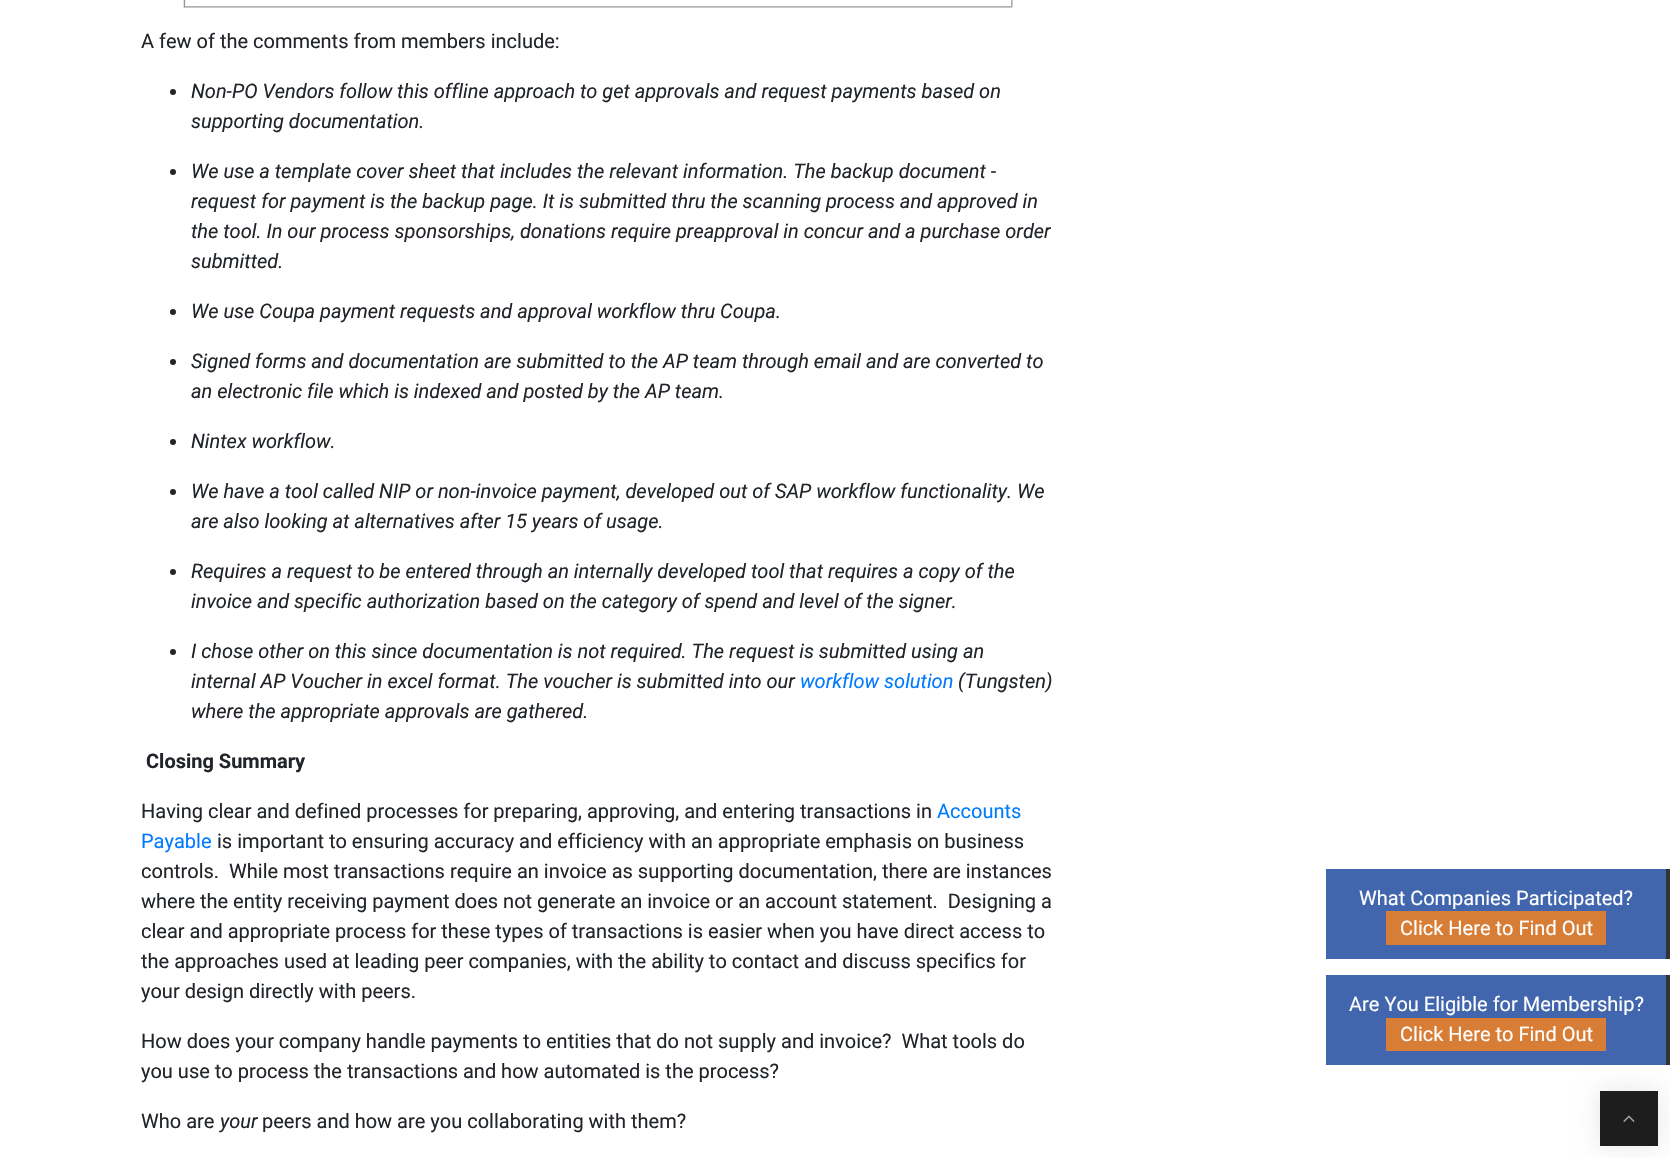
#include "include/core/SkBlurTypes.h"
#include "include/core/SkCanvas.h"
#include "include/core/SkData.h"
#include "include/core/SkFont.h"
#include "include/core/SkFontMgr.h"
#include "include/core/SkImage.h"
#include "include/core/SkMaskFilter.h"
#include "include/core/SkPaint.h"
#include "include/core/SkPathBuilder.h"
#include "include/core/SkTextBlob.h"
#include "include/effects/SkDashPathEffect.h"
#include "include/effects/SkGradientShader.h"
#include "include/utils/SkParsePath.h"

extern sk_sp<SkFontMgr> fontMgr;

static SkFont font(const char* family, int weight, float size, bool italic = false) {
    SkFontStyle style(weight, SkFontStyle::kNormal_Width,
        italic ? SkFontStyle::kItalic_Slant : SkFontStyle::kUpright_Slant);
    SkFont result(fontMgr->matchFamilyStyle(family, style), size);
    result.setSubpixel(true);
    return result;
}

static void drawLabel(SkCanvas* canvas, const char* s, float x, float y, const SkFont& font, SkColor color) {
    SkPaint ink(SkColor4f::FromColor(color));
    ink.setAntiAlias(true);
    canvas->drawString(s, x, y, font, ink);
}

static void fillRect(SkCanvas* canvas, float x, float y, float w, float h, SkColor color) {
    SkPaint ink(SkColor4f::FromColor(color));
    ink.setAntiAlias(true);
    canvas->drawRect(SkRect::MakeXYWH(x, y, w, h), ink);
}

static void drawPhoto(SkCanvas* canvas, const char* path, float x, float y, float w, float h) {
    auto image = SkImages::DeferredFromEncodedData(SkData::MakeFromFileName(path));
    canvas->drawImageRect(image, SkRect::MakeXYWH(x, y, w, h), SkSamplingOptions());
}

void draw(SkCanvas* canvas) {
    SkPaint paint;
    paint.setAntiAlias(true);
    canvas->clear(0xFFFFFFFF);
    drawPhoto(canvas, "assets/img1.png", 183, 0, 830, 8);
    SkFont font1 = font("Roboto", 400, 20);
    drawLabel(canvas, "A few of the comments from members include:", 141, 48, font1, 0xFF212529);
    paint.setColor(0xFF212529);
    canvas->drawCircle(173, 92, 3, paint);
    SkFont font2 = font("Roboto", 400, 20, true);
    drawLabel(canvas, "Non-PO Vendors follow this offline approach to get approvals and request payments based on", 191, 98, font2, 0xFF212529);
    drawLabel(canvas, "supporting documentation.", 191, 128, font2, 0xFF212529);
    canvas->drawCircle(173, 172, 3, paint);
    drawLabel(canvas, "We use a template cover sheet that includes the relevant information. The backup document -", 191, 178, font2, 0xFF212529);
    drawLabel(canvas, "request for payment is the backup page. It is submitted thru the scanning process and approved in", 191, 208, font2, 0xFF212529);
    drawLabel(canvas, "the tool. In our process sponsorships, donations require preapproval in concur and a purchase order", 191, 238, font2, 0xFF212529);
    drawLabel(canvas, "submitted.", 191, 268, font2, 0xFF212529);
    canvas->drawCircle(173, 312, 3, paint);
    drawLabel(canvas, "We use Coupa payment requests and approval workflow thru Coupa.", 191, 318, font2, 0xFF212529);
    canvas->drawCircle(173, 362, 3, paint);
    drawLabel(canvas, "Signed forms and documentation are submitted to the AP team through email and are converted to", 191, 368, font2, 0xFF212529);
    drawLabel(canvas, "an electronic file which is indexed and posted by the AP team.", 191, 398, font2, 0xFF212529);
    canvas->drawCircle(173, 442, 3, paint);
    drawLabel(canvas, "Nintex workflow.", 191, 448, font2, 0xFF212529);
    canvas->drawCircle(173, 492, 3, paint);
    drawLabel(canvas, "We have a tool called NIP or non-invoice payment, developed out of SAP workflow functionality. We", 191, 498, font2, 0xFF212529);
    drawLabel(canvas, "are also looking at alternatives after 15 years of usage.", 191, 528, font2, 0xFF212529);
    canvas->drawCircle(173, 572, 3, paint);
    drawLabel(canvas, "Requires a request to be entered through an internally developed tool that requires a copy of the", 191, 578, font2, 0xFF212529);
    drawLabel(canvas, "invoice and specific authorization based on the category of spend and level of the signer.", 191, 608, font2, 0xFF212529);
    canvas->drawCircle(173, 652, 3, paint);
    drawLabel(canvas, "I chose other on this since documentation is not required. The request is submitted using an", 191, 658, font2, 0xFF212529);
    drawLabel(canvas, "internal AP Voucher in excel format. The voucher is submitted into our", 191, 688, font2, 0xFF212529);
    drawLabel(canvas, "workflow solution", 800, 688, font2, 0xFF007BFF);
    drawLabel(canvas, "(Tungsten)", 958, 688, font2, 0xFF212529);
    drawLabel(canvas, "where the appropriate approvals are gathered.", 191, 718, font2, 0xFF212529);
    SkFont font3 = font("Roboto", 700, 20);
    drawLabel(canvas, "Closing Summary", 146, 768, font3, 0xFF212529);
    drawLabel(canvas, "Having clear and defined processes for preparing, approving, and entering transactions in", 141, 818, font1, 0xFF212529);
    drawLabel(canvas, "Accounts", 937, 818, font1, 0xFF007BFF);
    drawLabel(canvas, "Payable", 141, 848, font1, 0xFF007BFF);
    drawLabel(canvas, "is important to ensuring accuracy and efficiency with an appropriate emphasis on business", 217, 848, font1, 0xFF212529);
    drawLabel(canvas, "controls.  While most transactions require an invoice as supporting documentation, there are instances", 141, 878, font1, 0xFF212529);
    drawLabel(canvas, "where the entity receiving payment does not generate an invoice or an account statement.  Designing a", 141, 908, font1, 0xFF212529);
    drawLabel(canvas, "clear and appropriate process for these types of transactions is easier when you have direct access to", 141, 938, font1, 0xFF212529);
    drawLabel(canvas, "the approaches used at leading peer companies, with the ability to contact and discuss specifics for", 141, 968, font1, 0xFF212529);
    drawLabel(canvas, "your design directly with peers.", 141, 998, font1, 0xFF212529);
    drawLabel(canvas, "How does your company handle payments to entities that do not supply and invoice?  What tools do", 141, 1048, font1, 0xFF212529);
    drawLabel(canvas, "you use to process the transactions and how automated is the process?", 141, 1078, font1, 0xFF212529);
    drawLabel(canvas, "Who are", 141, 1128, font1, 0xFF212529);
    drawLabel(canvas, "your", 220, 1128, font2, 0xFF212529);
    drawLabel(canvas, "peers and how are you collaborating with them?", 262, 1128, font1, 0xFF212529);
    fillRect(canvas, 1326, 869, 340, 90, 0xFF4166AD);
    fillRect(canvas, 1666, 869, 4, 90, 0xFF333333);
    drawLabel(canvas, "What Companies Participated?", 1359, 905, font1, 0xFFFFFFFF);
    fillRect(canvas, 1386, 911, 220, 34, 0xFFD87D35);
    drawLabel(canvas, "Click Here to Find Out", 1400, 935, font1, 0xFFFFFFFF);
    paint.setColor(0x1A000000);
    paint.setMaskFilter(SkMaskFilter::MakeBlur(kNormal_SkBlurStyle, 12.5f));
    canvas->drawRect(SkRect::MakeXYWH(1600, 1091, 58, 55), paint);
    paint.setMaskFilter(nullptr);
    fillRect(canvas, 1326, 975, 340, 90, 0xFF4166AD);
    fillRect(canvas, 1666, 975, 4, 90, 0xFF333333);
    drawLabel(canvas, "Are You Eligible for Membership?", 1349, 1011, font1, 0xFFFFFFFF);
    fillRect(canvas, 1386, 1018, 220, 33, 0xFFD87D35);
    drawLabel(canvas, "Click Here to Find Out", 1400, 1041, font1, 0xFFFFFFFF);
    fillRect(canvas, 1600, 1091, 58, 55, 0xFF1D1D1D);
    drawPhoto(canvas, "assets/img2.png", 1623, 1115, 12, 7);
}
